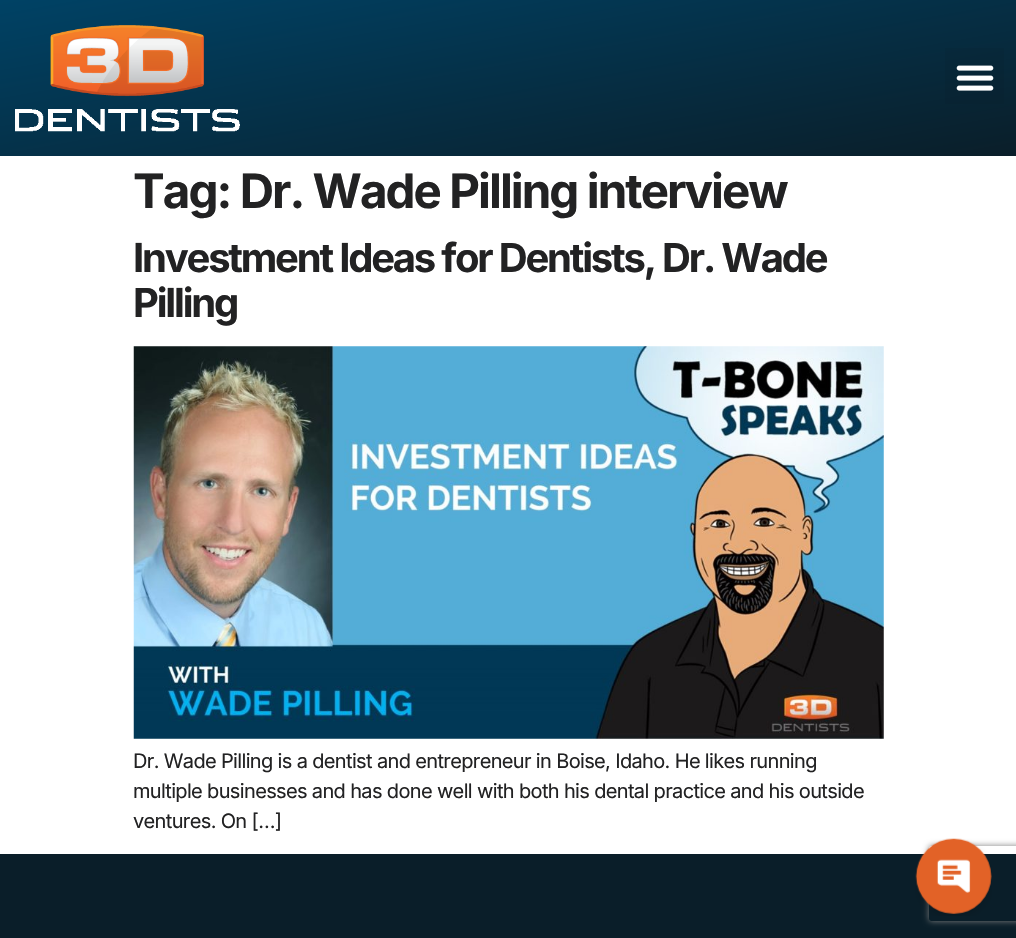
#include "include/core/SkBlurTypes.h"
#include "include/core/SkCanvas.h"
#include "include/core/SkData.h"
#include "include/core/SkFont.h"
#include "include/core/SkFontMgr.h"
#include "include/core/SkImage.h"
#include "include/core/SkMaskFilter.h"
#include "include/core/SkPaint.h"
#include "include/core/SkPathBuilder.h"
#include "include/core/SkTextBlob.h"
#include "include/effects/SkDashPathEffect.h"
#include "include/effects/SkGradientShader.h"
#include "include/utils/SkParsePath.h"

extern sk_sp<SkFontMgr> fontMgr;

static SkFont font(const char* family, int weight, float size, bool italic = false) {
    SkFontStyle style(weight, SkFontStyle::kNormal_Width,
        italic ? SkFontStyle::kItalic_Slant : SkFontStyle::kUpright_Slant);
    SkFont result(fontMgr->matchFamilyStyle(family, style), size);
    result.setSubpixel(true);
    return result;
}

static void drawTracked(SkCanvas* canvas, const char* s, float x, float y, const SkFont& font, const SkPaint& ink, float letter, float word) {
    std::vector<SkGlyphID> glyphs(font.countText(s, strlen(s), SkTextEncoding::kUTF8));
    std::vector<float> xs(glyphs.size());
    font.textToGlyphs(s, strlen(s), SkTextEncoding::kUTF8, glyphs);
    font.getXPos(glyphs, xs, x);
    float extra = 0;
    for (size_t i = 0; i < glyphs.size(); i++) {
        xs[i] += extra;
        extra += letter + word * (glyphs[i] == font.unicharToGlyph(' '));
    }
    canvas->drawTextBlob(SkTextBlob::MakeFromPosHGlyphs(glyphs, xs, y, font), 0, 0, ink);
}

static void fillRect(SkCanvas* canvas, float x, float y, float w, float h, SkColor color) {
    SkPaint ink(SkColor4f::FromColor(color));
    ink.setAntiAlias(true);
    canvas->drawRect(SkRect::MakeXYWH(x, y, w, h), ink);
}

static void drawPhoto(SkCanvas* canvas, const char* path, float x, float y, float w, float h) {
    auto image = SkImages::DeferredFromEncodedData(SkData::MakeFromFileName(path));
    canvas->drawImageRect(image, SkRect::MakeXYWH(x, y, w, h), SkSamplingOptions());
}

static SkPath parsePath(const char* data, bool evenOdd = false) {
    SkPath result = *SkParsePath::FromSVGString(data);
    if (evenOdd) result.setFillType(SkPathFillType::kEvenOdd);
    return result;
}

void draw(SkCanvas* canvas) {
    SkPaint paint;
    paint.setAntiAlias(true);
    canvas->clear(0xFFFFFFFF);
    {
        const SkColor colors[] = {0xFF0A1E29, 0xFF004265};
        const float stops[] = {0, 1};
        const SkPoint ends[] = {{537, 241}, {479, -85}};
        paint.setShader(SkGradientShader::MakeLinear(ends, colors, stops, 2, SkTileMode::kClamp));
        paint.setAlpha(255);
    }
    canvas->drawRect(SkRect::MakeXYWH(0, 0, 1016, 156), paint);
    drawPhoto(canvas, "assets/img1.png", 15, 25, 225, 107);
    fillRect(canvas, 945, 48, 59, 56, 0x0D000000);
    drawPhoto(canvas, "assets/img2.png", 956, 65, 38, 26);
    SkFont font1 = font("Inter", 700, 47.5f);
    paint.setShader(nullptr);
    paint.setColor(0xFF222223);
    drawTracked(canvas, "Tag: Dr. Wade Pilling interview", 133, 208, font1, paint, -1.95f, 0);
    SkFont font2 = font("Inter", 700, 40);
    drawTracked(canvas, "Investment Ideas for Dentists, Dr. Wade", 133, 272, font2, paint, -2.2f, 0);
    drawTracked(canvas, "Pilling", 133, 317, font2, paint, -2.2f, 0);
    drawPhoto(canvas, "assets/img3.png", 133, 346, 751, 393);
    SkFont font3 = font("Inter", 400, 20);
    drawTracked(canvas, "Dr. Wade Pilling is a dentist and entrepreneur in Boise, Idaho. He likes running", 133, 768, font3, paint, -0.65f, 0);
    drawTracked(canvas, "multiple businesses and has done well with both his dental practice and his outside", 133, 798, font3, paint, -0.65f, 0);
    drawTracked(canvas, "ventures. On […]", 133, 828, font3, paint, -0.65f, 0);
    fillRect(canvas, 0, 854, 1016, 84, 0xFF0A1E29);
    canvas->save();
    canvas->clipPath(parsePath("M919 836H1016V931H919ZM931.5 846H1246.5C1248 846 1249 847 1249 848.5V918.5C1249 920 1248 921 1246.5 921H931.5C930 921 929 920 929 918.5V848.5C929 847 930 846 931.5 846Z", true), true);
    paint.setColor(0xFF808080);
    paint.setMaskFilter(SkMaskFilter::MakeBlur(kNormal_SkBlurStyle, 3));
    canvas->drawRoundRect(SkRect::MakeXYWH(929, 846, 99, 75), 2.5f, 2.5f, paint);
    paint.setMaskFilter(nullptr);
    canvas->restore();
    drawPhoto(canvas, "assets/img4.png", 915, 838, 77, 78);
}
